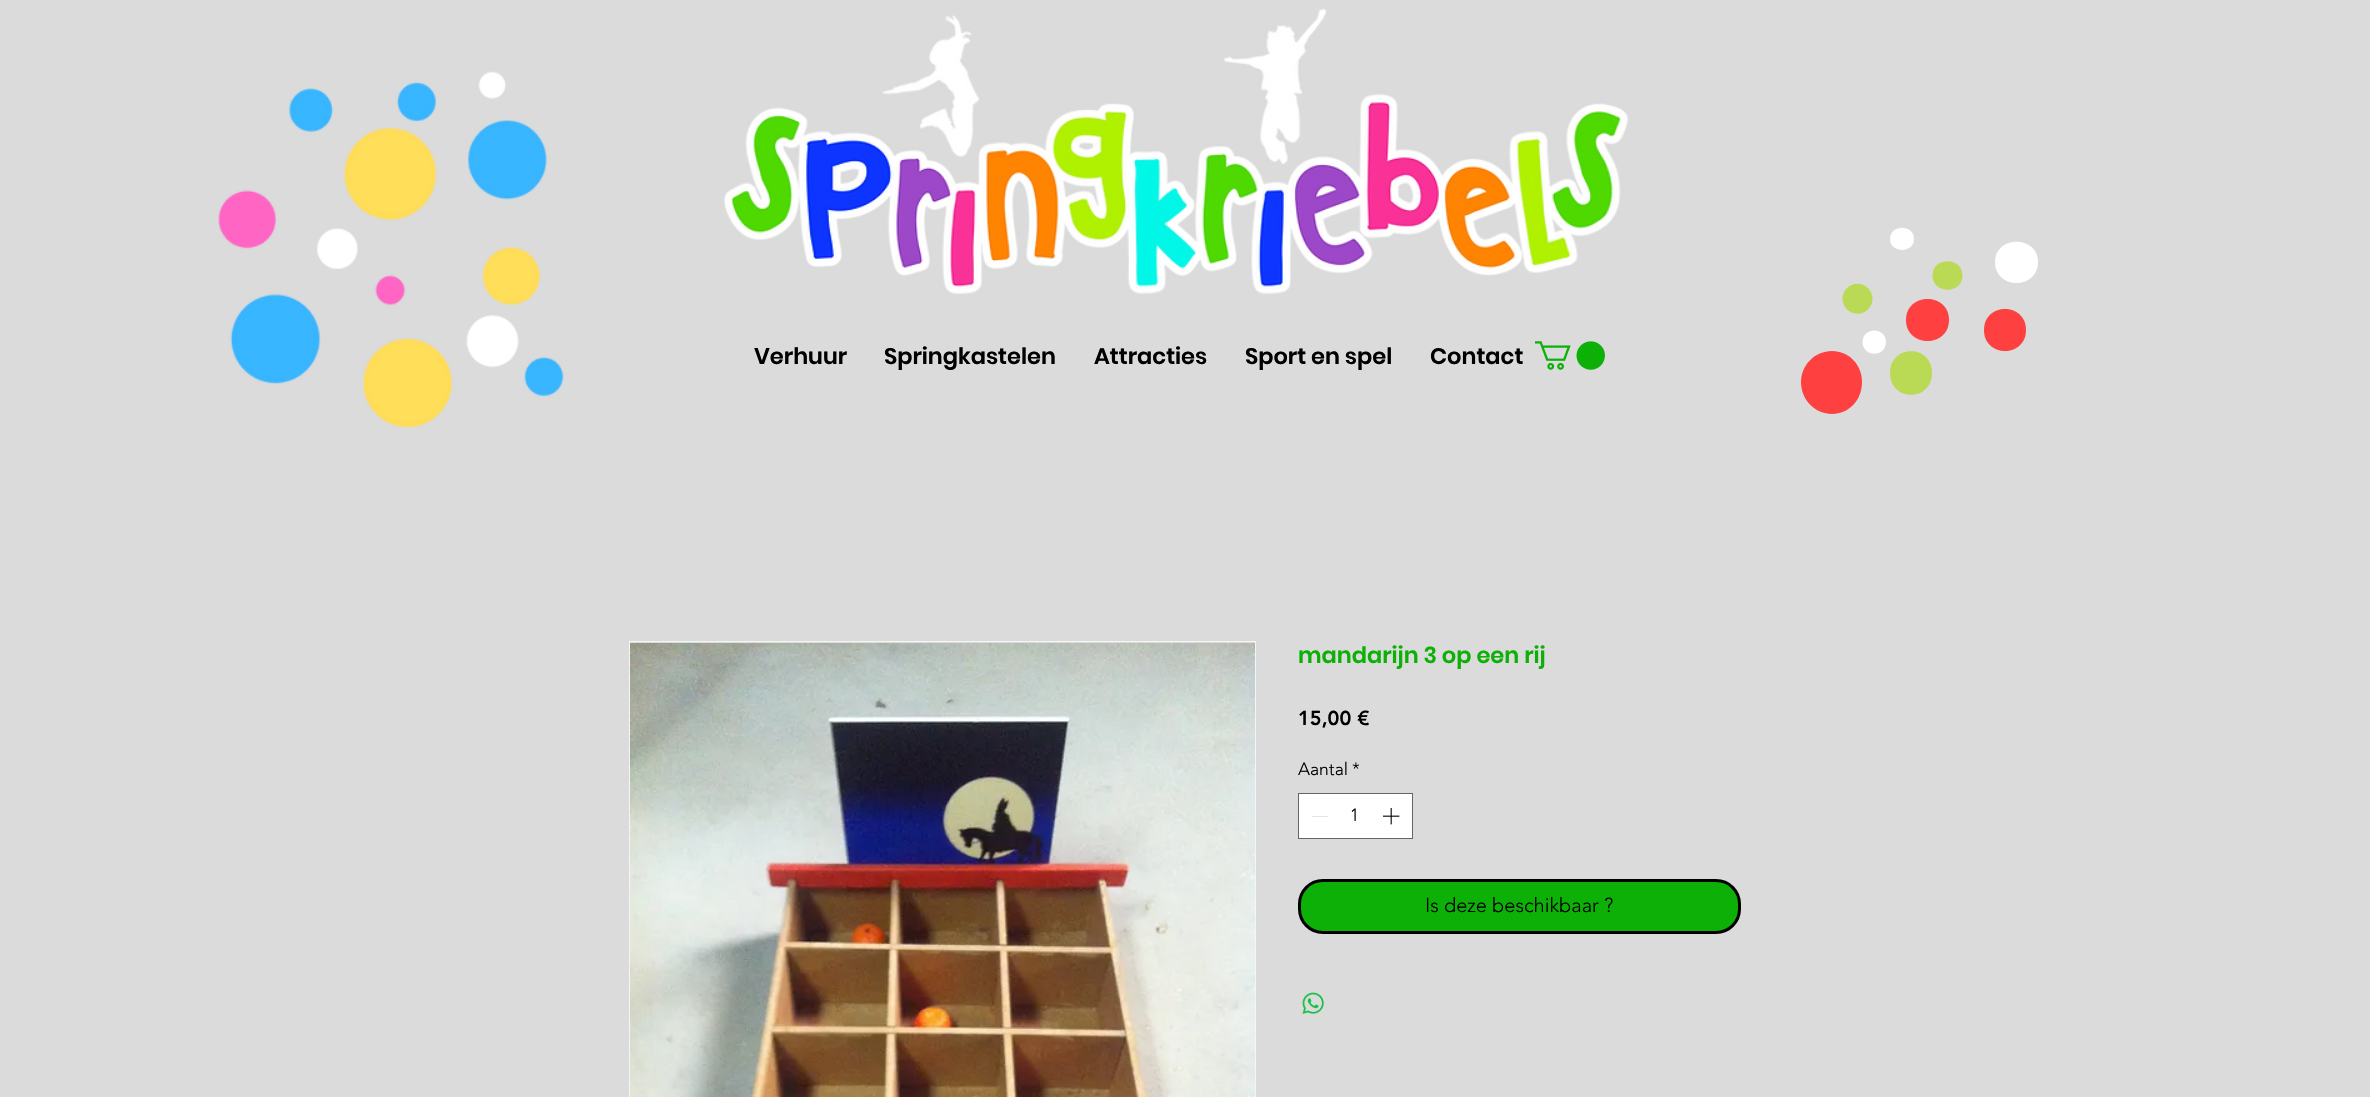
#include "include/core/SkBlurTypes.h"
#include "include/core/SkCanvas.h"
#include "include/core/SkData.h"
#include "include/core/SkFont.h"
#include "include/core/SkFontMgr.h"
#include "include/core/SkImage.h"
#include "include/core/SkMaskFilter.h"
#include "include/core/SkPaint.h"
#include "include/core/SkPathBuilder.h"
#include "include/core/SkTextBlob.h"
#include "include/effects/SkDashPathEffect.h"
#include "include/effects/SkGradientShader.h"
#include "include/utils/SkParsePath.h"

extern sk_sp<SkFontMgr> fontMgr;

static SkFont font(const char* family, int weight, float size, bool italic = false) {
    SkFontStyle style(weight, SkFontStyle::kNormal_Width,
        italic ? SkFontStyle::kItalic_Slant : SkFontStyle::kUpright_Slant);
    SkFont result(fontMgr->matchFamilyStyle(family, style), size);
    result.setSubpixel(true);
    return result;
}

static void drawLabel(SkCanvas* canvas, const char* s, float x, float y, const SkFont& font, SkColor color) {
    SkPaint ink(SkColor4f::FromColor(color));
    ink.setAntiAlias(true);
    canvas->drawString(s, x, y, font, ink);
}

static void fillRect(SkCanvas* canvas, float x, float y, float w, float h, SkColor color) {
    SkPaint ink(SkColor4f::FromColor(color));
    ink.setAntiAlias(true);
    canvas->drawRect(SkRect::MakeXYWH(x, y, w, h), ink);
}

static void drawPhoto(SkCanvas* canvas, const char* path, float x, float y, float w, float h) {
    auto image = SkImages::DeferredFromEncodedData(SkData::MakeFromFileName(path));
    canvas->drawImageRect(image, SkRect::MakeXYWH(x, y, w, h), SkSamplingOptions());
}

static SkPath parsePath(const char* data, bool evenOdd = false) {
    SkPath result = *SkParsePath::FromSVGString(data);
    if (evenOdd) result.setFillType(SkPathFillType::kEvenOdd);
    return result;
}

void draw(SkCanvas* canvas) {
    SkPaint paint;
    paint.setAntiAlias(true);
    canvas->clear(0xFFDBDBDB);
    drawPhoto(canvas, "assets/img3.png", 218, 81, 346, 348);
    drawPhoto(canvas, "assets/img1.png", 478, 71, 28, 28);
    drawPhoto(canvas, "assets/img2.png", 724, 8, 905, 286);
    paint.setColor(0xFFFFFFFF);
    canvas->drawPath(parsePath("M1914 239C1914 253.5 1890 253.5 1890 239C1890 224 1914 224 1914 239Z"), paint);
    drawPhoto(canvas, "assets/img4.png", 316, 228, 42, 41);
    paint.setColor(0xFFBADA55);
    canvas->drawPath(parsePath("M1962.5 275.5C1962.5 294.5 1932.5 294.5 1932.5 275.5C1932.5 256.5 1962.5 256.5 1962.5 275.5Z"), paint);
    paint.setColor(0xFFFFFFFF);
    canvas->drawPath(parsePath("M2038 262C2038 290 1995 290 1995 262C1995 235 2038 235 2038 262Z"), paint);
    drawPhoto(canvas, "assets/img5.png", 466, 315, 53, 53);
    SkFont font1 = font("Poppins", 600, 22.5f);
    drawLabel(canvas, "Verhuur", 754, 364, font1, 0xFF000000);
    drawLabel(canvas, "Springkastelen", 884, 364, font1, 0xFF000000);
    drawLabel(canvas, "Attracties", 1094, 364, font1, 0xFF000000);
    drawLabel(canvas, "Sport en spel", 1245, 364, font1, 0xFF000000);
    drawLabel(canvas, "Contact", 1430, 364, font1, 0xFF000000);
    drawPhoto(canvas, "assets/img6.png", 1535, 341, 70, 29);
    drawPhoto(canvas, "assets/img7.png", 1842, 283, 31, 31);
    canvas->drawPath(parsePath("M1886 342C1886 357.5 1862.5 357.5 1862.5 342C1862.5 326.5 1886 326.5 1886 342Z"), paint);
    paint.setColor(0xFFFF4040);
    canvas->drawPath(parsePath("M1949 320C1949 348 1906 348 1906 320C1906 292 1949 292 1949 320Z"), paint);
    canvas->drawPath(parsePath("M2026 330C2026 358 1984 358 1984 330C1984 302 2026 302 2026 330Z"), paint);
    canvas->drawPath(parsePath("M1862 382C1862 400 1849 414 1832 414C1815 414 1801 400 1801 382C1801 365 1815 351 1832 351C1849 351 1862 365 1862 382Z"), paint);
    paint.setColor(0xFFBADA55);
    canvas->drawPath(parsePath("M1932 373C1932 402 1890 402 1890 373C1890 344 1932 344 1932 373Z"), paint);
    paint.setStroke(true);
    paint.setStrokeWidth(1);
    paint.setColor(0xFFF5F5F5);
    canvas->drawRect(SkRect::MakeXYWH(629.5f, 641.5f, 626, 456), paint);
    drawPhoto(canvas, "assets/img8.png", 630, 643, 625, 454);
    drawLabel(canvas, "mandarijn 3 op een rij", 1298, 663, font1, 0xFF0DB007);
    SkFont font2 = font("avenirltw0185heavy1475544", 900, 20);
    drawLabel(canvas, "15,00 €", 1298, 725, font2, 0xFF000000);
    SkFont font3 = font("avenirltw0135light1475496", 300, 17.5f);
    drawLabel(canvas, "Aantal", 1298, 775, font3, 0xFF000000);
    drawLabel(canvas, "*", 1352, 775, font3, 0xFF000000);
    paint.setStroke(false);
    paint.setColor(0xFFFFFFFF);
    canvas->drawRect(SkRect::MakeXYWH(1298.5f, 793.5f, 114, 45), paint);
    paint.setStroke(true);
    paint.setColor(0xFF666666);
    canvas->drawRect(SkRect::MakeXYWH(1298.5f, 793.5f, 114, 45), paint);
    fillRect(canvas, 1312, 816, 16, 1, 0xFFE3E3E3);
    drawLabel(canvas, "1", 1350, 821, font3, 0xFF000000);
    drawPhoto(canvas, "assets/img9.png", 1383, 808, 17, 17);
    paint.setStroke(false);
    paint.setColor(0xFF0DB007);
    canvas->drawRoundRect(SkRect::MakeXYWH(1299.5f, 880.5f, 440, 52), 23.5f, 23.5f, paint);
    paint.setStroke(true);
    paint.setStrokeWidth(3);
    paint.setColor(0xFF000000);
    canvas->drawRoundRect(SkRect::MakeXYWH(1299.5f, 880.5f, 440, 52), 23.5f, 23.5f, paint);
    SkFont font4 = font("avenirltw0135light1475496", 300, 20);
    drawLabel(canvas, "Is deze beschikbaar ?", 1425, 912, font4, 0xFF000000);
    drawPhoto(canvas, "assets/img10.png", 1302, 992, 22, 22);
}
